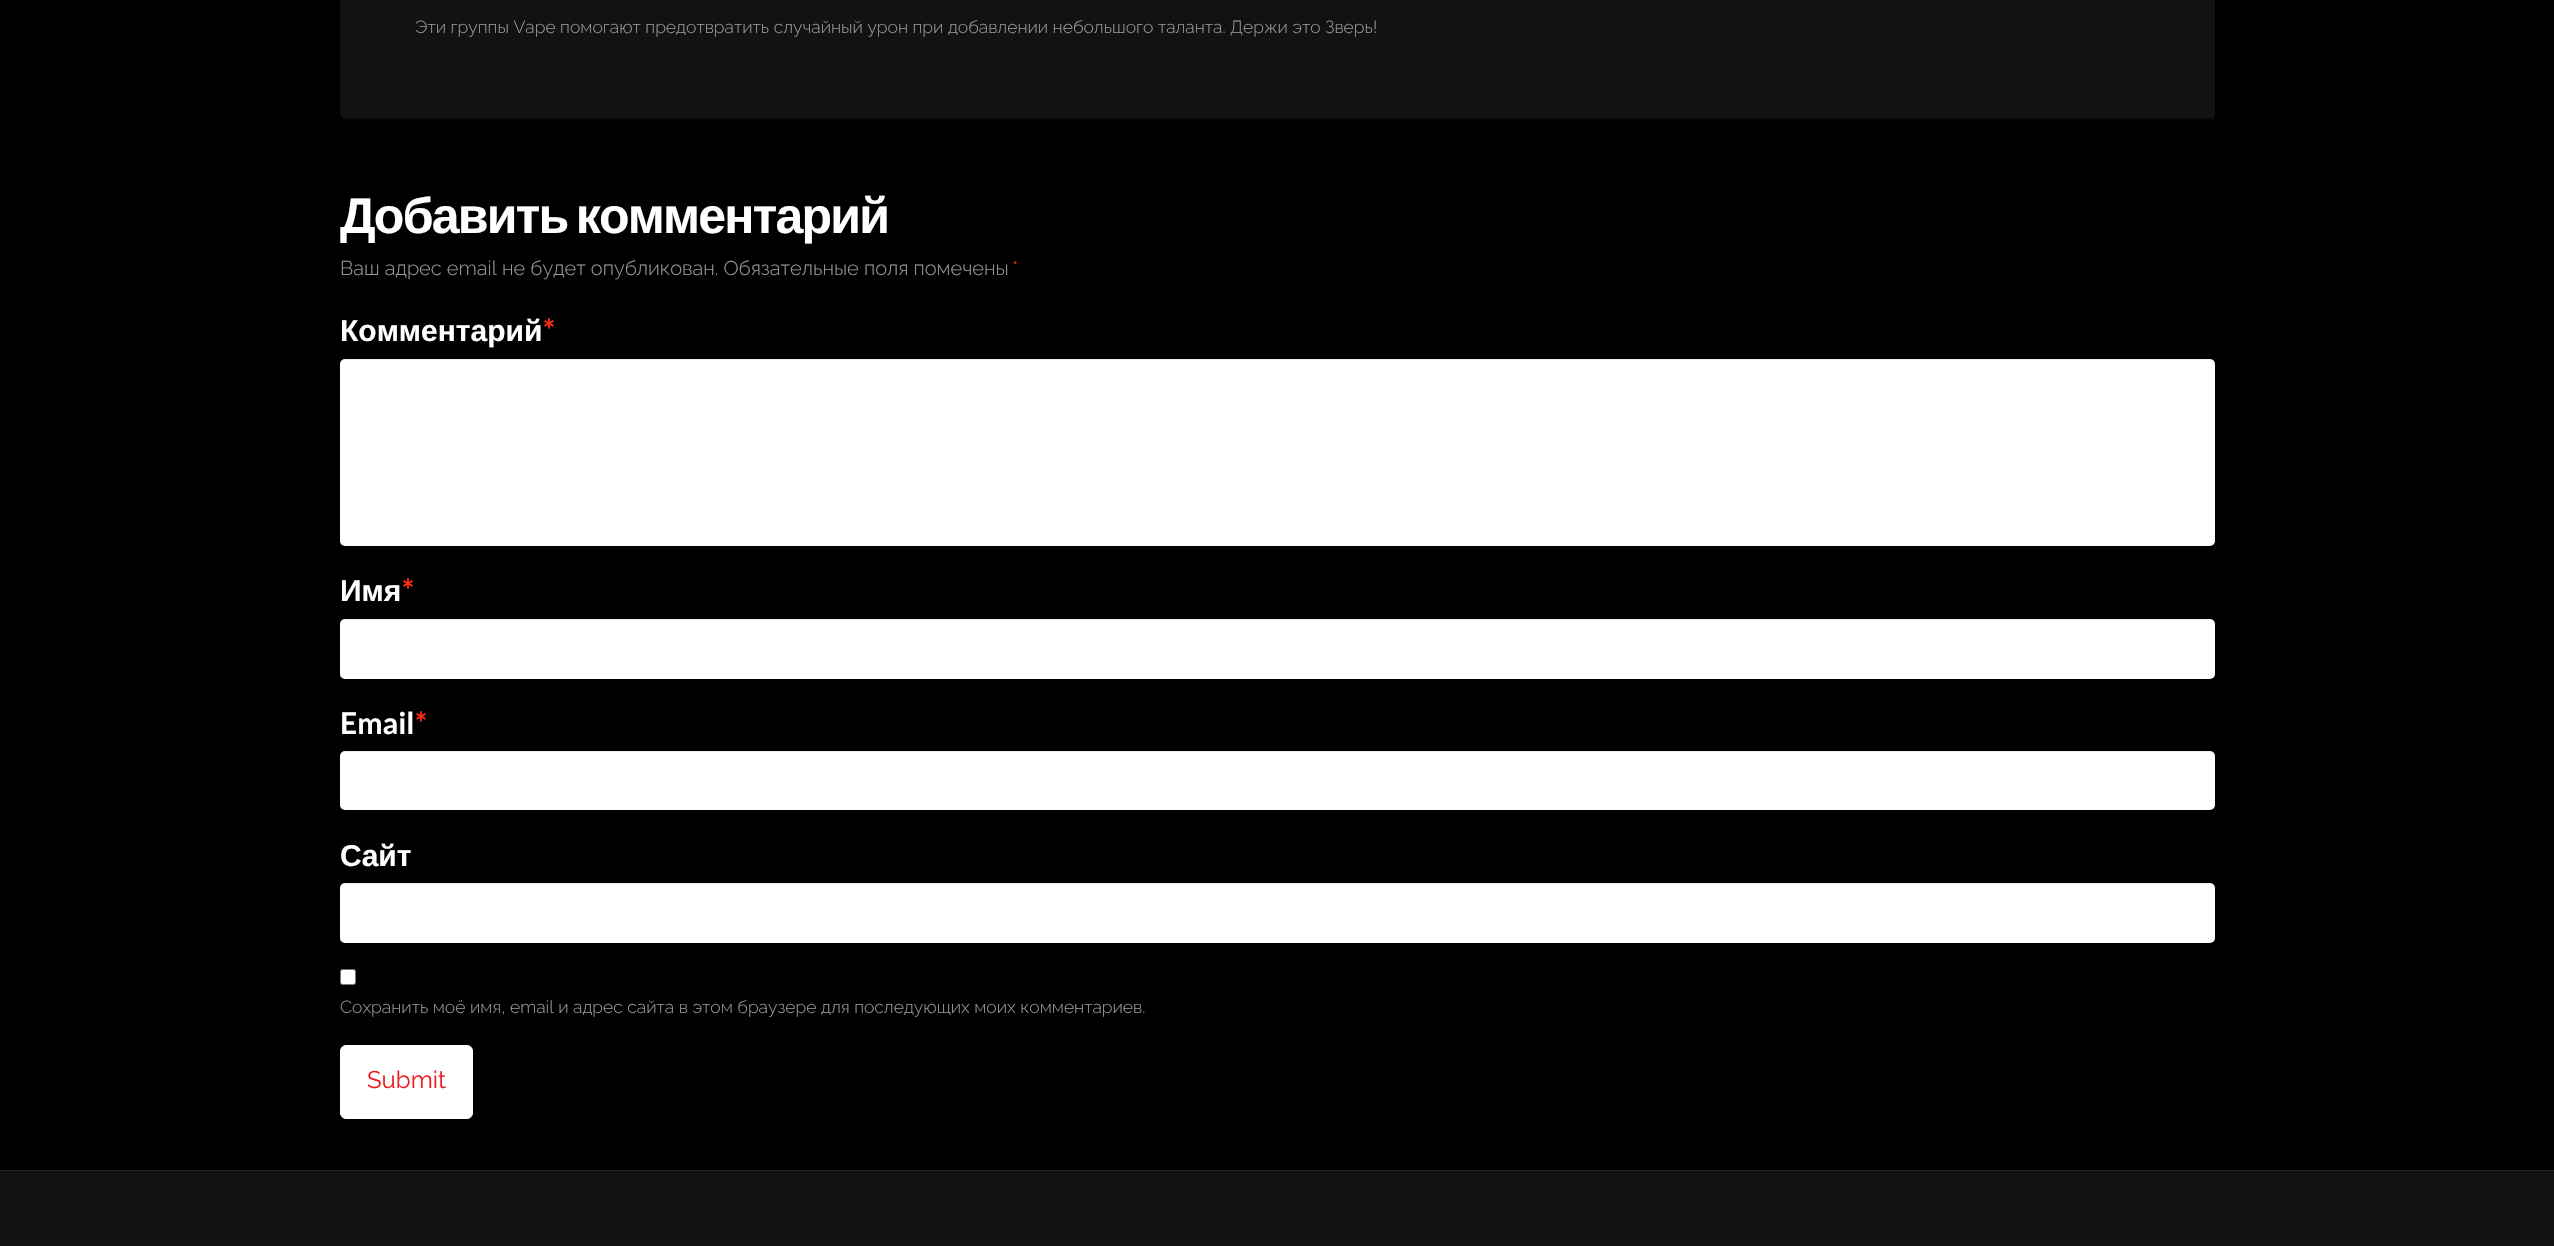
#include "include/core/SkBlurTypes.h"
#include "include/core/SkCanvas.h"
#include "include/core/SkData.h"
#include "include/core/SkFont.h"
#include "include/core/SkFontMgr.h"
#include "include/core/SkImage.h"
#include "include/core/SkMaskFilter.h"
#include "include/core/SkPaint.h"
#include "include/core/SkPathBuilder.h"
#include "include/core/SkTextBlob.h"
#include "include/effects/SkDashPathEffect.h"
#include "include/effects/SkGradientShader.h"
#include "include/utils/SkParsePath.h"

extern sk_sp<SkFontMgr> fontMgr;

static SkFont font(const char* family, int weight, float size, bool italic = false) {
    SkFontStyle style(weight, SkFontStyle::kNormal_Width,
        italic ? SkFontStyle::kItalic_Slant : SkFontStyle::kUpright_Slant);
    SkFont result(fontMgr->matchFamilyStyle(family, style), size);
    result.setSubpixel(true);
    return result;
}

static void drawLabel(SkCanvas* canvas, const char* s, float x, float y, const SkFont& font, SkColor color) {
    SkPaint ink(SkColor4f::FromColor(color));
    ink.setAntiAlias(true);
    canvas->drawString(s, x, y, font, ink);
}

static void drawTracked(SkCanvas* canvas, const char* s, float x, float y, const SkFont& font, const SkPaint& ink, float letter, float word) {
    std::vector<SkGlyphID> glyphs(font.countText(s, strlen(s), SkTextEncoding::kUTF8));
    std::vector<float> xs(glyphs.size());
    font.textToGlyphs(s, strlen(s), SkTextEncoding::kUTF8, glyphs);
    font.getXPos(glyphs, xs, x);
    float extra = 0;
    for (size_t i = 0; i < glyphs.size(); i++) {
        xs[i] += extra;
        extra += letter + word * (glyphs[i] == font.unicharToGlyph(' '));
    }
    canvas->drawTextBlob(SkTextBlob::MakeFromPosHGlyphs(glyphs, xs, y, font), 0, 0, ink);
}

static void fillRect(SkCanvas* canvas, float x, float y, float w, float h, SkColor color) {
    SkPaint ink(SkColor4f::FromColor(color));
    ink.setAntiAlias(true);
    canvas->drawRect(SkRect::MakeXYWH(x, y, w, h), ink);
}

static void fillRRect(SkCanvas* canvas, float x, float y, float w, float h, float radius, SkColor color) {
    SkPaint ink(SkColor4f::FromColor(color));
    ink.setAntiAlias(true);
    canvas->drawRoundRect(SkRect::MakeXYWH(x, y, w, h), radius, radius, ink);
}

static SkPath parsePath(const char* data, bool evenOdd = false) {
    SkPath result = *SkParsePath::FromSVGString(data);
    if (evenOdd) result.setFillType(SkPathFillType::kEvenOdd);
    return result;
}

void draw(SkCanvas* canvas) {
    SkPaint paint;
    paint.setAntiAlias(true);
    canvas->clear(0xFF000000);
    paint.setColor(0x12FFFFFF);
    paint.setMaskFilter(SkMaskFilter::MakeBlur(kNormal_SkBlurStyle, 1));
    canvas->drawRoundRect(SkRect::MakeXYWH(343, -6, 1870, 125), 2.5f, 2.5f, paint);
    paint.setMaskFilter(nullptr);
    paint.setColor(0xFF121212);
    canvas->drawPath(parsePath("M340-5H2215V113C2215 116 2213 118 2210 118H345C342 118 340 116 340 113Z"), paint);
    SkFont font1 = font("Raleway", 300, 17.5f);
    drawLabel(canvas, "Эти группы Vape помогают предотвратить случайный урон при добавлении небольшого таланта. Держи это Зверь!", 415, 33, font1, 0xFF999999);
    SkFont font2 = font("Liberation Sans", 700, 50);
    paint.setColor(0xFFFFFFFF);
    drawTracked(canvas, "Добавить комментарий", 340, 233, font2, paint, -1.75f, -4);
    SkFont font3 = font("Raleway", 300, 20);
    drawLabel(canvas, "Ваш адрес email не будет опубликован. Обязательные поля помечены", 340, 275, font3, 0xFF999999);
    drawLabel(canvas, "*", 1012, 275, font3, 0xFFFF2A13);
    SkFont font4 = font("Liberation Sans", 700, 30);
    drawLabel(canvas, "Комментарий", 340, 341, font4, 0xFFFFFFFF);
    SkFont font5 = font("Lato", 700, 30);
    drawLabel(canvas, "*", 543, 341, font5, 0xFFFF2A13);
    fillRRect(canvas, 340, 359, 1875, 187, 5, 0xFFFFFFFF);
    paint.setColor(0x12000000);
    canvas->drawPath(parsePath("M345 360H2210C2213 360 2215 362 2215 365C2215 362 2213 359 2210 359H345C342 359 340 362 340 365C340 362 342 360 345 360Z"), paint);
    drawLabel(canvas, "Имя", 340, 601, font4, 0xFFFFFFFF);
    drawLabel(canvas, "*", 402, 601, font5, 0xFFFF2A13);
    fillRRect(canvas, 340, 619, 1875, 60, 5, 0xFFFFFFFF);
    canvas->drawPath(parsePath("M345 620H2210C2213 620 2215 622 2215 625C2215 622 2213 619 2210 619H345C342 619 340 622 340 625C340 622 342 620 345 620Z"), paint);
    drawLabel(canvas, "Email", 340, 734, font5, 0xFFFFFFFF);
    drawLabel(canvas, "*", 415, 734, font5, 0xFFFF2A13);
    fillRRect(canvas, 340, 751, 1875, 59, 5, 0xFFFFFFFF);
    canvas->drawPath(parsePath("M345 752H2210C2213 752 2215 755 2215 758C2215 755 2214 751 2210 751H345C341 751 340 755 340 758C340 755 342 752 345 752Z"), paint);
    drawLabel(canvas, "Сайт", 340, 866, font4, 0xFFFFFFFF);
    fillRRect(canvas, 340, 883, 1875, 60, 5, 0xFFFFFFFF);
    canvas->drawPath(parsePath("M345 884H2210C2213 884 2215 886 2215 889C2215 886 2213 883 2210 883H345C342 883 340 886 340 889C340 886 342 884 345 884Z"), paint);
    paint.setColor(0xFFFFFFFF);
    canvas->drawRoundRect(SkRect::MakeXYWH(340.5f, 969.5f, 15, 15), 2, 2, paint);
    paint.setStroke(true);
    paint.setStrokeWidth(1);
    paint.setColor(0xFF767676);
    canvas->drawRoundRect(SkRect::MakeXYWH(340.5f, 969.5f, 15, 15), 2, 2, paint);
    drawLabel(canvas, "Сохранить моё имя, email и адрес сайта в этом браузере для последующих моих комментариев.", 340, 1013, font1, 0xFF999999);
    paint.setStroke(false);
    paint.setColor(0xFFFFFFFF);
    canvas->drawRoundRect(SkRect::MakeXYWH(340.5f, 1045.5f, 132, 73), 5.5f, 5.5f, paint);
    paint.setStroke(true);
    canvas->drawRoundRect(SkRect::MakeXYWH(340.5f, 1045.5f, 132, 73), 5.5f, 5.5f, paint);
    SkFont font6 = font("Raleway", 400, 24);
    drawLabel(canvas, "Submit", 367, 1088, font6, 0xFFED1D24);
    fillRect(canvas, 0, 1171, 2554, 75, 0xFF121212);
    fillRect(canvas, 0, 1170, 2554, 1, 0xFF242424);
}
